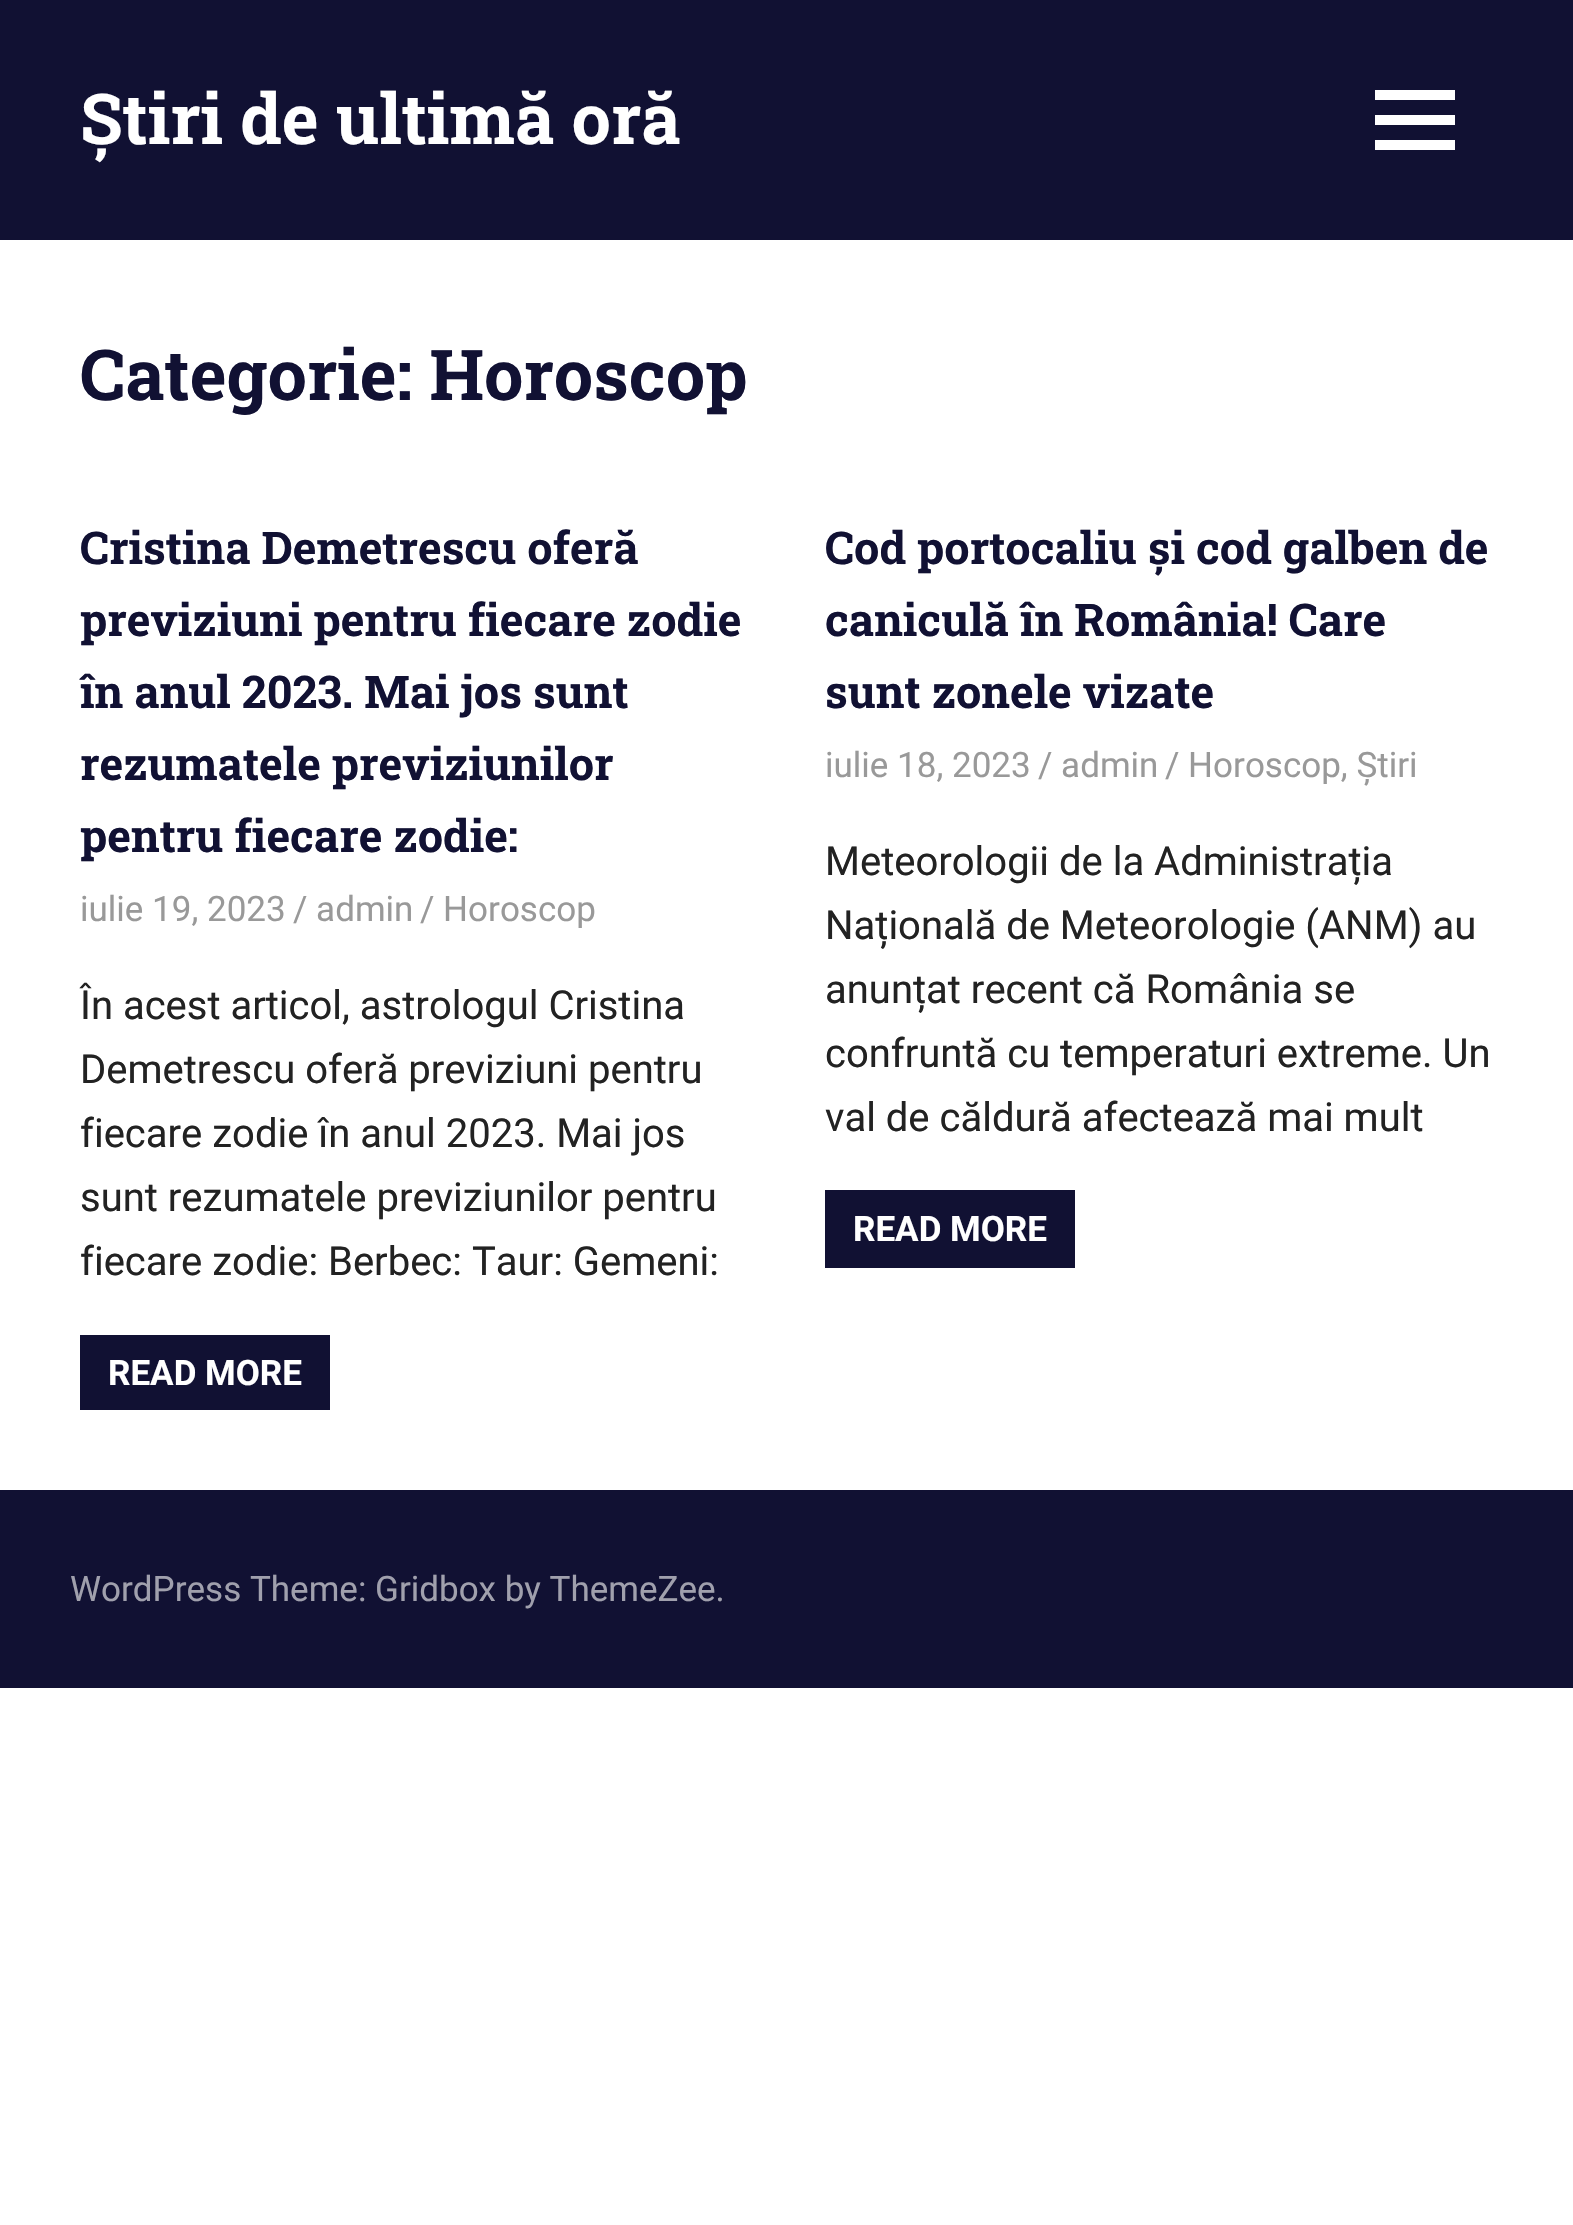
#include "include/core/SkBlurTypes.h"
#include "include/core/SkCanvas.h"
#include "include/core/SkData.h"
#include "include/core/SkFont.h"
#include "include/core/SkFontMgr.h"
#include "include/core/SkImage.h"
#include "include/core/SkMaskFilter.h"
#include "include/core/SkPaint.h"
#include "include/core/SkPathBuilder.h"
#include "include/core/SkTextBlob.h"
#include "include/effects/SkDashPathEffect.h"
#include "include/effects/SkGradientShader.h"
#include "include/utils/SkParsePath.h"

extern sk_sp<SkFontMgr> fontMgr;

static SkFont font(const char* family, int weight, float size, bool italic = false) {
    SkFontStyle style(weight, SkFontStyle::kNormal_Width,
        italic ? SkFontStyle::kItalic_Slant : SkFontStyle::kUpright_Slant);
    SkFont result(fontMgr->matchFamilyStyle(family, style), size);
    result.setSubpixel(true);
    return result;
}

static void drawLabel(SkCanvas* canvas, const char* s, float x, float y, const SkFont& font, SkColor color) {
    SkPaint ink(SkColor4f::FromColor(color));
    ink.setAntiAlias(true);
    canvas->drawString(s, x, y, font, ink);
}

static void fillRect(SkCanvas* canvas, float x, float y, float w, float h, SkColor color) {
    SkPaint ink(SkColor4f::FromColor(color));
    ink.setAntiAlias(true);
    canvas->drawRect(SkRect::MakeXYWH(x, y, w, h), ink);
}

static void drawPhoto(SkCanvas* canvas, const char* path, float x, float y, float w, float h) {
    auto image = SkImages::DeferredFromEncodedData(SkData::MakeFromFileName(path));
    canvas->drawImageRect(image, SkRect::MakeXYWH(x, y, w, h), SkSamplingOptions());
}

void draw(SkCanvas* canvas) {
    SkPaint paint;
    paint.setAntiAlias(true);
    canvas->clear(0xFFFFFFFF);
    fillRect(canvas, 0, 0, 1573, 240, 0xFF111133);
    SkFont font1 = font("Roboto Slab", 700, 70);
    drawLabel(canvas, "Știri de ultimă oră", 80, 144, font1, 0xFFFFFFFF);
    drawPhoto(canvas, "assets/img1.png", 1375, 90, 80, 60);
    drawLabel(canvas, "Categorie: Horoscop", 80, 400, font1, 0xFF111133);
    SkFont font2 = font("Roboto Slab", 700, 45);
    drawLabel(canvas, "Cristina Demetrescu oferă", 80, 564, font2, 0xFF111133);
    drawLabel(canvas, "previziuni pentru fiecare zodie", 80, 636, font2, 0xFF111133);
    drawLabel(canvas, "în anul 2023. Mai jos sunt", 80, 708, font2, 0xFF111133);
    drawLabel(canvas, "rezumatele previziunilor", 80, 780, font2, 0xFF111133);
    drawLabel(canvas, "pentru fiecare zodie:", 80, 852, font2, 0xFF111133);
    SkFont font3 = font("Roboto", 400, 35);
    drawLabel(canvas, "iulie 19, 2023", 80, 921, font3, 0xFF999999);
    drawLabel(canvas, "/ admin", 293, 921, font3, 0xFF999999);
    drawLabel(canvas, "/ Horoscop", 420, 921, font3, 0xFF999999);
    SkFont font4 = font("Roboto", 400, 40);
    drawLabel(canvas, "În acest articol, astrologul Cristina", 80, 1019, font4, 0xFF222222);
    drawLabel(canvas, "Demetrescu oferă previziuni pentru", 80, 1083, font4, 0xFF222222);
    drawLabel(canvas, "fiecare zodie în anul 2023. Mai jos", 80, 1147, font4, 0xFF222222);
    drawLabel(canvas, "sunt rezumatele previziunilor pentru", 80, 1211, font4, 0xFF222222);
    drawLabel(canvas, "fiecare zodie: Berbec: Taur: Gemeni:", 80, 1275, font4, 0xFF222222);
    fillRect(canvas, 80, 1335, 250, 75, 0xFF111133);
    SkFont font5 = font("Roboto", 700, 35);
    drawLabel(canvas, "READ MORE", 108, 1385, font5, 0xFFFFFFFF);
    drawLabel(canvas, "Cod portocaliu și cod galben de", 825, 564, font2, 0xFF111133);
    drawLabel(canvas, "caniculă în România! Care", 825, 636, font2, 0xFF111133);
    drawLabel(canvas, "sunt zonele vizate", 825, 708, font2, 0xFF111133);
    drawLabel(canvas, "iulie 18, 2023", 825, 777, font3, 0xFF999999);
    drawLabel(canvas, "/ admin", 1038, 777, font3, 0xFF999999);
    drawLabel(canvas, "/ Horoscop, Știri", 1165, 777, font3, 0xFF999999);
    drawLabel(canvas, "Meteorologii de la Administrația", 825, 875, font4, 0xFF222222);
    drawLabel(canvas, "Națională de Meteorologie (ANM) au", 825, 939, font4, 0xFF222222);
    drawLabel(canvas, "anunțat recent că România se", 825, 1003, font4, 0xFF222222);
    drawLabel(canvas, "confruntă cu temperaturi extreme. Un", 825, 1067, font4, 0xFF222222);
    drawLabel(canvas, "val de căldură afectează mai mult", 825, 1131, font4, 0xFF222222);
    fillRect(canvas, 825, 1190, 250, 78, 0xFF111133);
    drawLabel(canvas, "READ MORE", 853, 1241, font5, 0xFFFFFFFF);
    fillRect(canvas, 0, 1490, 1573, 198, 0xFF111133);
    drawLabel(canvas, "WordPress Theme: Gridbox by ThemeZee.", 70, 1601, font3, 0xFFA0A0AD);
}
